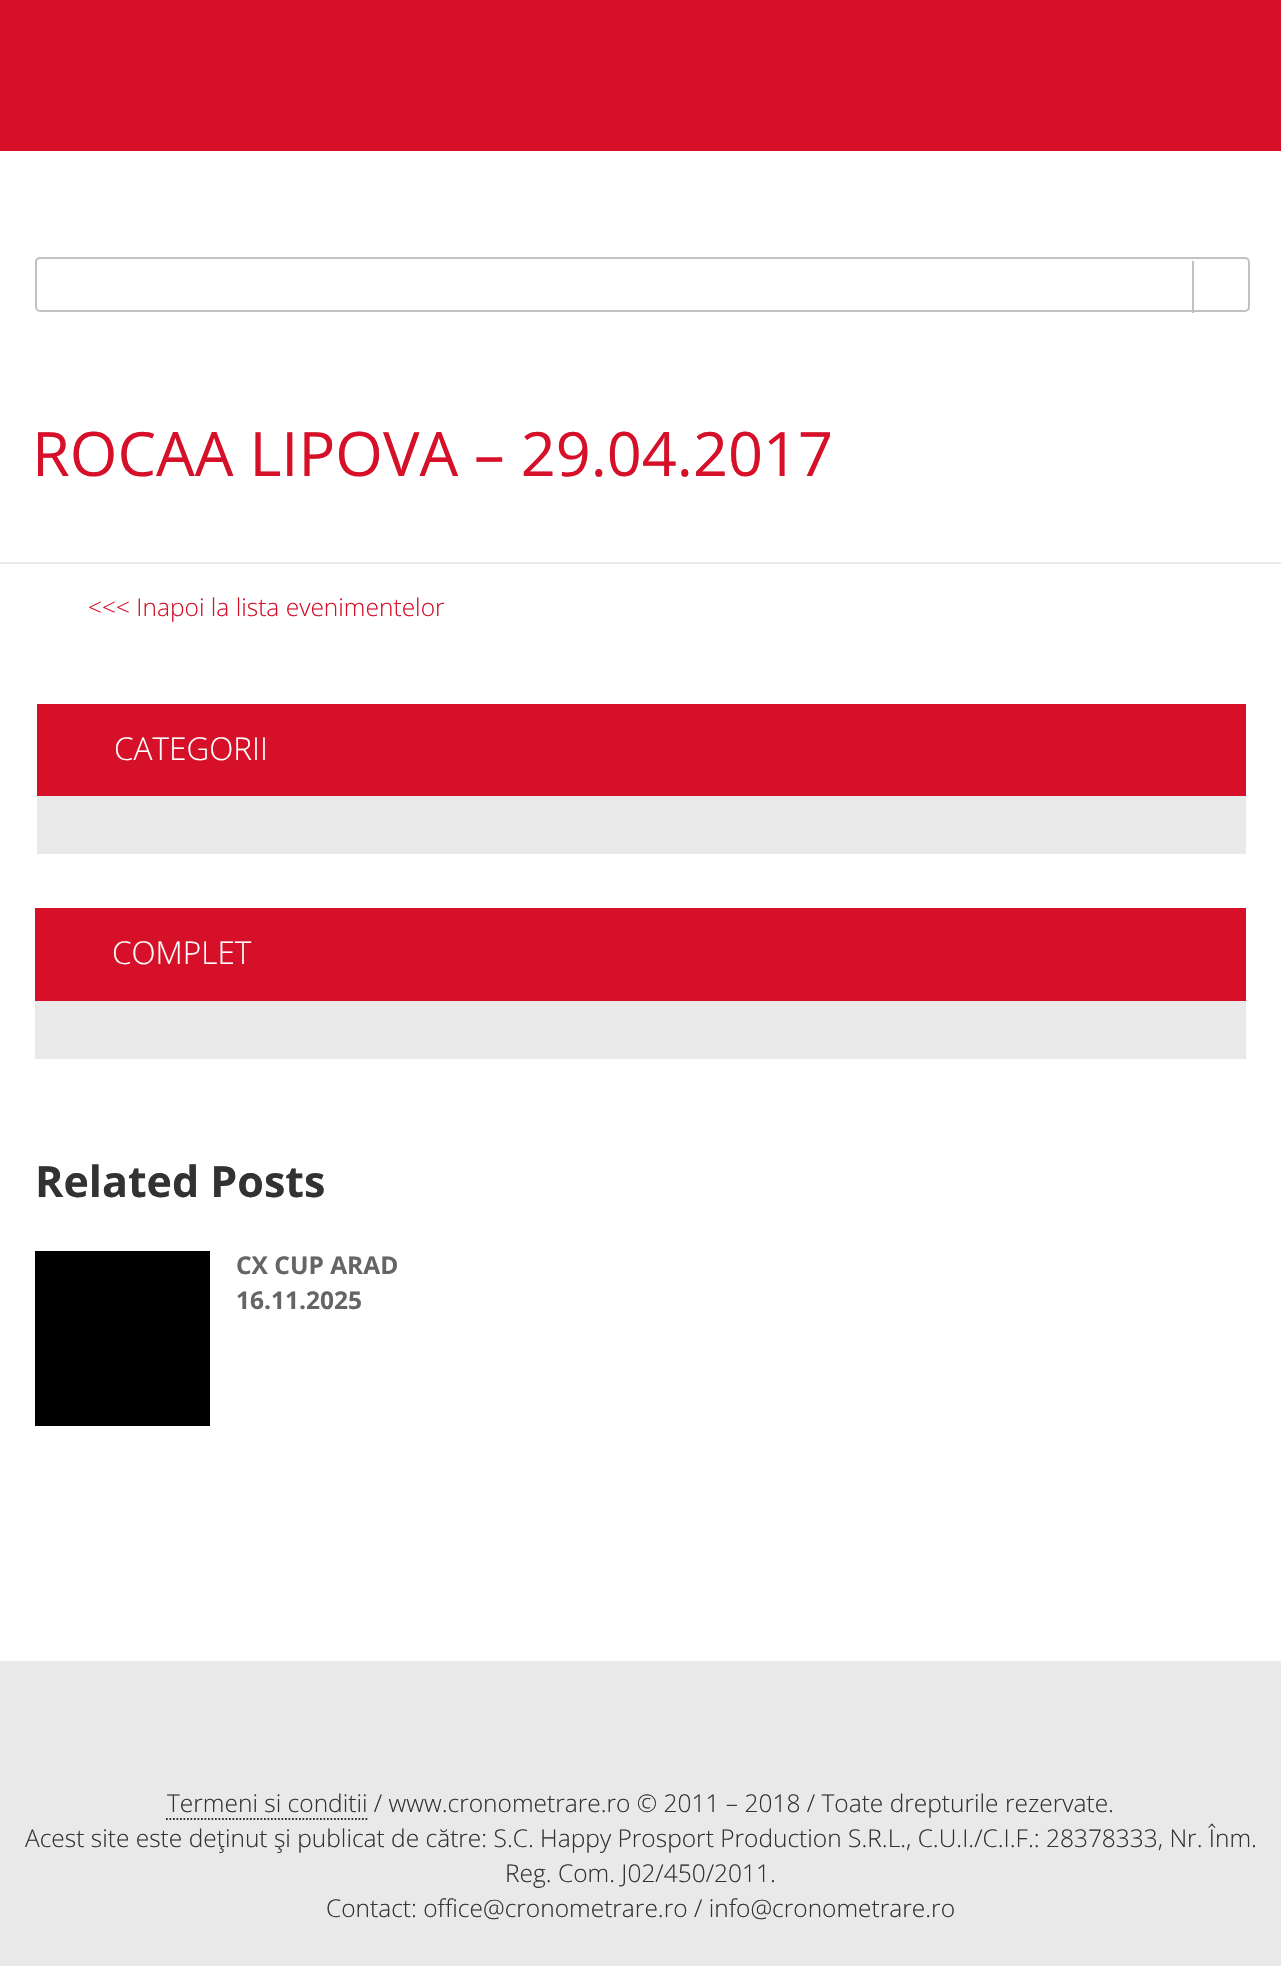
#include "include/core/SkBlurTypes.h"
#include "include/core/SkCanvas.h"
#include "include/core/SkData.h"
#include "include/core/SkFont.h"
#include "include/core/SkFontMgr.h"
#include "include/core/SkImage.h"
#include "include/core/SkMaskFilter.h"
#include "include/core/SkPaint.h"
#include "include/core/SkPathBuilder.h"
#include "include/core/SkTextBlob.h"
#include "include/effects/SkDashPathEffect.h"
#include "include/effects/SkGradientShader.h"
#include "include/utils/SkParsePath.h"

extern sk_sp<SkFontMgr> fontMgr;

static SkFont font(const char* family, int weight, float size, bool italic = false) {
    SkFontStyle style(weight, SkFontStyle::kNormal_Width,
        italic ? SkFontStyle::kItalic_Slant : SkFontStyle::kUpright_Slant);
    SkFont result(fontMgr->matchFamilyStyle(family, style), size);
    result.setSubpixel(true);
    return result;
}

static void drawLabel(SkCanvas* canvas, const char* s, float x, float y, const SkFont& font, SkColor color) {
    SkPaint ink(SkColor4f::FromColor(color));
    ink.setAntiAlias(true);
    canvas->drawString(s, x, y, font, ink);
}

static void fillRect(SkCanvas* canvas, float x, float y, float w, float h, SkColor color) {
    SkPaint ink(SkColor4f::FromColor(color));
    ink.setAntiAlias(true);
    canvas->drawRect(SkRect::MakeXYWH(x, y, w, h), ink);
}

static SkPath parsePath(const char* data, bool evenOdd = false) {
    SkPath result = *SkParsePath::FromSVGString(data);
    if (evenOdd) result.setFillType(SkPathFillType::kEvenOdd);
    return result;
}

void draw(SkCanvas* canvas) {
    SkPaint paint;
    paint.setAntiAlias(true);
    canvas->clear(0xFFFFFFFF);
    fillRect(canvas, 0, 0, 1281, 151, 0xFFD51028);
    paint.setStroke(true);
    paint.setStrokeWidth(2);
    paint.setColor(0xFFC1C1C1);
    canvas->drawRoundRect(SkRect::MakeXYWH(36, 258, 1213, 53), 4, 4, paint);
    fillRect(canvas, 1192, 261, 2, 52, 0xFFC1C1C1);
    fillRect(canvas, 0, 562, 1281, 2, 0xFFE9E9E9);
    SkFont font1 = font("Open Sans", 400, 61.25f);
    drawLabel(canvas, "ROCAA LIPOVA – 29.04.2017", 32, 476, font1, 0xFFD51028);
    SkFont font2 = font("Open Sans", 300, 24.5f);
    drawLabel(canvas, "<<< Inapoi la lista evenimentelor", 88, 616, font2, 0xFFD51028);
    fillRect(canvas, 37, 704, 1209, 92, 0xFFD51028);
    SkFont font3 = font("Open Sans", 300, 31.5f);
    drawLabel(canvas, "CATEGORII", 114, 760, font3, 0xFFFFFFFF);
    fillRect(canvas, 37, 796, 1209, 58, 0xFFE9E9E9);
    fillRect(canvas, 35, 908, 1211, 93, 0xFFD51028);
    drawLabel(canvas, "COMPLET", 112, 964, font3, 0xFFFFFFFF);
    fillRect(canvas, 35, 1001, 1211, 58, 0xFFE9E9E9);
    SkFont font4 = font("Open Sans", 700, 43);
    drawLabel(canvas, "Related Posts", 35, 1197, font4, 0xFF323232);
    fillRect(canvas, 35, 1251, 175, 175, 0xFF000000);
    SkFont font5 = font("Open Sans", 700, 24.5f);
    drawLabel(canvas, "CX CUP ARAD", 236, 1274, font5, 0xFF656565);
    drawLabel(canvas, "16.11.2025", 236, 1309, font5, 0xFF656565);
    fillRect(canvas, 0, 1661, 1281, 305, 0xFFE9E9E9);
    drawLabel(canvas, "Termeni si conditii / www.cronometrare.ro © 2011 – 2018 / Toate drepturile rezervate.", 167, 1812, font2, 0xFF323232);
    paint.setStrokeWidth(1.8f);
    paint.setColor(0xFF323232);
    paint.setPathEffect(SkDashPathEffect::Make({{1.75f, 1.75f}}, 0));
    canvas->drawPath(parsePath("M166 1819H367.5"), paint);
    paint.setPathEffect(nullptr);
    drawLabel(canvas, "Acest site este deţinut şi publicat de către: S.C. Happy Prosport Production S.R.L., C.U.I./C.I.F.: 28378333, Nr. Înm.", 25, 1847, font2, 0xFF323232);
    drawLabel(canvas, "Reg. Com. J02/450/2011.", 505, 1882, font2, 0xFF323232);
    drawLabel(canvas, "Contact: office@cronometrare.ro / info@cronometrare.ro", 326, 1917, font2, 0xFF323232);
}
